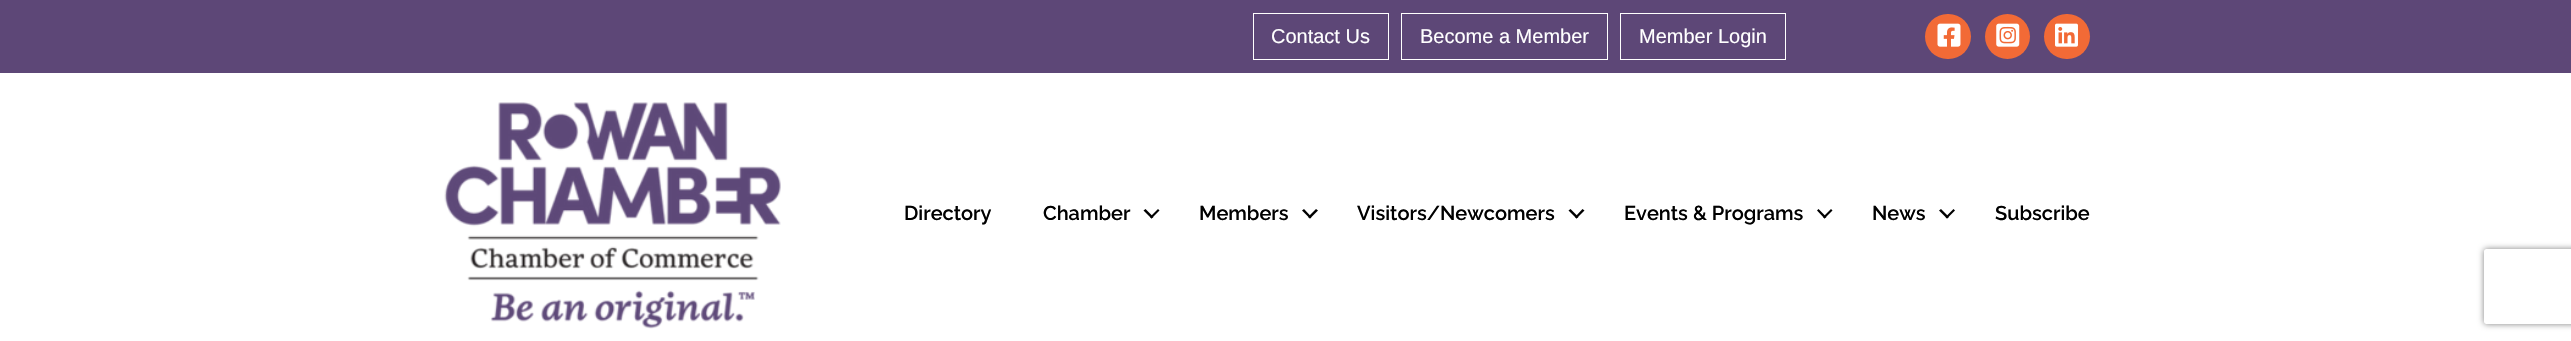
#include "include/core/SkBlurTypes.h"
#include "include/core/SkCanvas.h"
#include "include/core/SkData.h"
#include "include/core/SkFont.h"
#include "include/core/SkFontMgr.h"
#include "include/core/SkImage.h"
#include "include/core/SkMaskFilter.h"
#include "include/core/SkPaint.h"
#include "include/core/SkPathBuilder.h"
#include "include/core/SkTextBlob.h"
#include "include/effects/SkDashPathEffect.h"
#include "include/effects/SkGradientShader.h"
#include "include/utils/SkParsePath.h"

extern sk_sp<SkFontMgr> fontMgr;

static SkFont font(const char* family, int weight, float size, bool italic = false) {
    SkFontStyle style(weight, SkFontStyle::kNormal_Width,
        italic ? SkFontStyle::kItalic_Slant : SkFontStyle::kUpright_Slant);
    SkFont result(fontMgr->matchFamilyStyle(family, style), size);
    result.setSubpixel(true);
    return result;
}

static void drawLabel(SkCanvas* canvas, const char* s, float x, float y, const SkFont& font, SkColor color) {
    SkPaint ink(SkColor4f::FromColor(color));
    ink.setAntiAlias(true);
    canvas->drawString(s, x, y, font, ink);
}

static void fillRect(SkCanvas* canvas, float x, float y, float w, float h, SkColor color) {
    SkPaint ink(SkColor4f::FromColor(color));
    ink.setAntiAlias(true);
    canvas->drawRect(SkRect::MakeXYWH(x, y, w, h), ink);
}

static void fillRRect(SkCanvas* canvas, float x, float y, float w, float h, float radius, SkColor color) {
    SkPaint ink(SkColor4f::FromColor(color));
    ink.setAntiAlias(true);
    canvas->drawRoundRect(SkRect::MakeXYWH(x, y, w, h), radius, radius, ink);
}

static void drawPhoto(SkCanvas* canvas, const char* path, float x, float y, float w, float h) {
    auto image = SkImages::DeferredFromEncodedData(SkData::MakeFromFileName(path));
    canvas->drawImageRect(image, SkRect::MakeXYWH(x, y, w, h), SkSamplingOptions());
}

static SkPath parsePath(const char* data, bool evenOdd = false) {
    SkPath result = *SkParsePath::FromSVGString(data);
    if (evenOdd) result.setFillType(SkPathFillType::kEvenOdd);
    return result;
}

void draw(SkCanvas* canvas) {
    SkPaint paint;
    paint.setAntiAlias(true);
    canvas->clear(0xFF5D4777);
    paint.setStroke(true);
    paint.setStrokeWidth(1);
    paint.setColor(0xFFFFFFFF);
    canvas->drawRect(SkRect::MakeXYWH(1253.5f, 13.5f, 135, 46), paint);
    SkFont font1 = font("Liberation Sans", 400, 20);
    drawLabel(canvas, "Contact Us", 1271, 43, font1, 0xFFFFFFFF);
    canvas->drawRect(SkRect::MakeXYWH(1401.5f, 13.5f, 206, 46), paint);
    drawLabel(canvas, "Become a Member", 1420, 43, font1, 0xFFFFFFFF);
    canvas->drawRect(SkRect::MakeXYWH(1620.5f, 13.5f, 165, 46), paint);
    drawLabel(canvas, "Member Login", 1639, 43, font1, 0xFFFFFFFF);
    fillRRect(canvas, 1925, 14, 46, 45, 22.5f, 0xFFF26A36);
    drawPhoto(canvas, "assets/img1.png", 1937, 23, 24, 24);
    paint.setStroke(false);
    paint.setColor(0xFFF26A36);
    canvas->drawCircle(2007.5f, 36.5f, 22.5f, paint);
    drawPhoto(canvas, "assets/img2.png", 1996, 23, 24, 24);
    fillRRect(canvas, 2044, 14, 46, 45, 22.5f, 0xFFF26A36);
    drawPhoto(canvas, "assets/img3.png", 2055, 23, 23, 24);
    fillRect(canvas, 0, 73, 2571, 268, 0xFFFFFFFF);
    drawPhoto(canvas, "assets/img4.png", 444, 102, 337, 227);
    SkFont font2 = font("Raleway", 600, 20);
    drawLabel(canvas, "Directory", 904, 220, font2, 0xFF000000);
    drawLabel(canvas, "Chamber", 1043, 220, font2, 0xFF000000);
    paint.setColor(0xFF000000);
    canvas->drawPath(parsePath("M1158 209L1159.5 210.5L1151.5 218.5L1150 217Z"), paint);
    canvas->drawPath(parsePath("M1145.5 209L1153.5 217L1151.5 218.5L1143.5 210.5Z"), paint);
    drawLabel(canvas, "Members", 1199, 220, font2, 0xFF000000);
    canvas->drawPath(parsePath("M1316 209L1318 210.5L1310 218.5L1308 217Z"), paint);
    canvas->drawPath(parsePath("M1304 209L1311.5 217L1310 218.5L1302 210.5Z"), paint);
    drawLabel(canvas, "Visitors/Newcomers", 1357, 220, font2, 0xFF000000);
    canvas->drawPath(parsePath("M1582.5 209L1584.5 210.5L1576.5 218.5L1575 217Z"), paint);
    canvas->drawPath(parsePath("M1570.5 209L1578.5 217L1576.5 218.5L1568.5 210.5Z"), paint);
    drawLabel(canvas, "Events & Programs", 1624, 220, font2, 0xFF000000);
    canvas->drawPath(parsePath("M1831 209L1832.5 210.5L1824.5 218.5L1823 217Z"), paint);
    canvas->drawPath(parsePath("M1818.5 209L1826.5 217L1824.5 218.5L1817 210.5Z"), paint);
    drawLabel(canvas, "News", 1872, 220, font2, 0xFF000000);
    canvas->drawPath(parsePath("M1953.5 209L1955 210.5L1947 218.5L1945.5 217Z"), paint);
    canvas->drawPath(parsePath("M1941 209L1949 217L1947 218.5L1939 210.5Z"), paint);
    drawLabel(canvas, "Subscribe", 1995, 220, font2, 0xFF000000);
    canvas->save();
    canvas->clipPath(parsePath("M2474 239H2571V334H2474ZM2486.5 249H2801.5C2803 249 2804 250 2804 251.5V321.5C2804 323 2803 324 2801.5 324H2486.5C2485 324 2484 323 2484 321.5V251.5C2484 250 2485 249 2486.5 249Z", true), true);
    paint.setColor(0xFF808080);
    paint.setMaskFilter(SkMaskFilter::MakeBlur(kNormal_SkBlurStyle, 3));
    canvas->drawRoundRect(SkRect::MakeXYWH(2484, 249, 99, 75), 2.5f, 2.5f, paint);
    paint.setMaskFilter(nullptr);
    canvas->restore();
}
